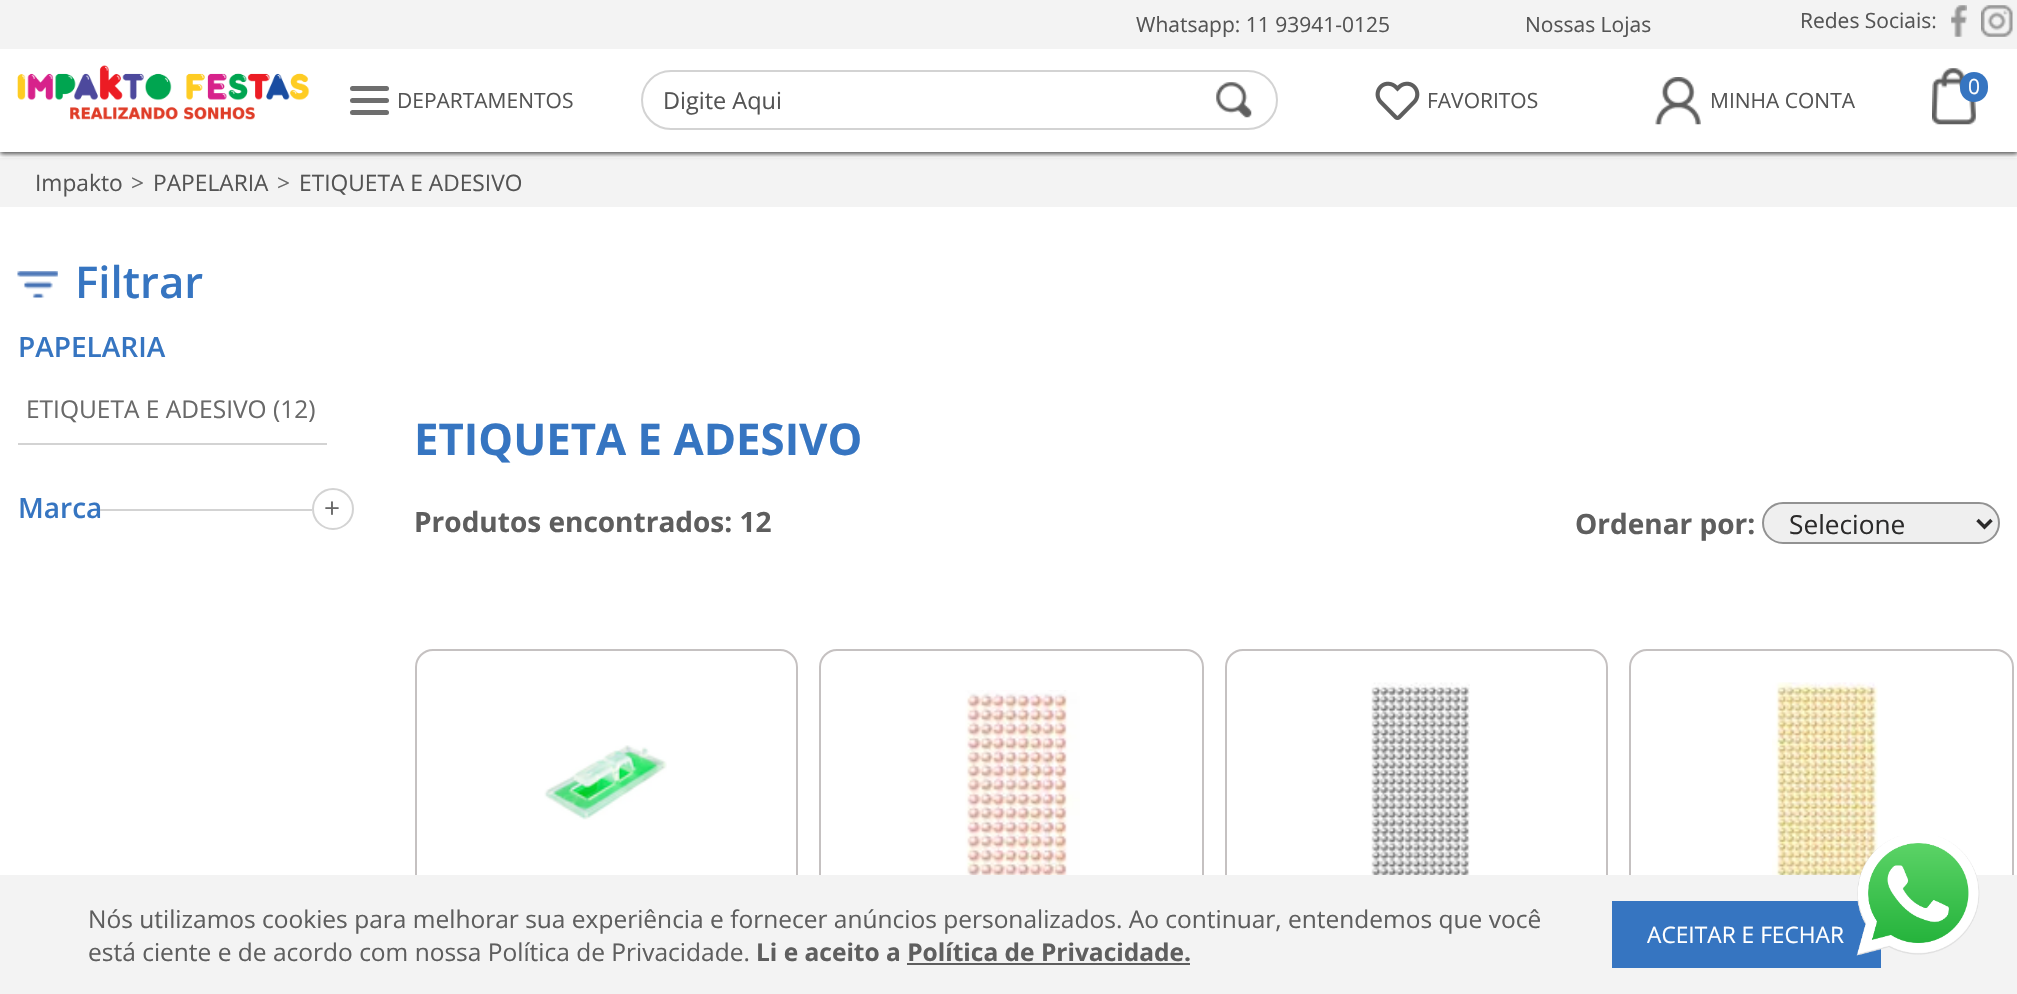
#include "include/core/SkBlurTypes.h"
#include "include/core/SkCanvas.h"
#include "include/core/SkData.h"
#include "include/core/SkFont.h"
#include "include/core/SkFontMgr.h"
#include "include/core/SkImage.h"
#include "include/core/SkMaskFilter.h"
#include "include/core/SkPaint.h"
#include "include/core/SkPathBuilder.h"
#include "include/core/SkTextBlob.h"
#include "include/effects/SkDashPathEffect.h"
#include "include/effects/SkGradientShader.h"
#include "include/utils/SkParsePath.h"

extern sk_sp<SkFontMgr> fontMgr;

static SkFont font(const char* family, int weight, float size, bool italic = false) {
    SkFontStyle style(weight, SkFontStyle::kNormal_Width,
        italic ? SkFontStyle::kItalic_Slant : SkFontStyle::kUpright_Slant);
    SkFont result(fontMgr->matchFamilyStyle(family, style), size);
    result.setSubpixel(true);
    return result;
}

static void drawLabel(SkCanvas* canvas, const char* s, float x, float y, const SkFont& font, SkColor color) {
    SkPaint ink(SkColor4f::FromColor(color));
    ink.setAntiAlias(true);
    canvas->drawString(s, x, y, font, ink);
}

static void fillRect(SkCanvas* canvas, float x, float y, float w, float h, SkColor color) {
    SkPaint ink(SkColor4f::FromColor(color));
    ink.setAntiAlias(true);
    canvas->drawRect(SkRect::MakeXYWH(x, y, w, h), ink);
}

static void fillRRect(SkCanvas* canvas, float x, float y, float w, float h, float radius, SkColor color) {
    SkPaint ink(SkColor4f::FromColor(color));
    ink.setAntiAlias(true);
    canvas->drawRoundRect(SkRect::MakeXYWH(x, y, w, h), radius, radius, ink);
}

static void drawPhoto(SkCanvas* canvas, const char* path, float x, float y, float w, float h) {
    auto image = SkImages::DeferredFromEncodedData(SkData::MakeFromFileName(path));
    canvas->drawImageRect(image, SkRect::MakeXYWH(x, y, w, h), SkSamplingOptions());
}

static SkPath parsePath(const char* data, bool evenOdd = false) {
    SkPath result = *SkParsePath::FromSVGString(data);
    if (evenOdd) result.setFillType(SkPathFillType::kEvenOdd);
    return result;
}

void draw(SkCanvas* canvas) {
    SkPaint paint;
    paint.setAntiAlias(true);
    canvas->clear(0xFFFFFFFF);
    fillRect(canvas, 0, 158, 2017, 49, 0xFFF3F3F3);
    paint.setColor(0xB3000000);
    paint.setMaskFilter(SkMaskFilter::MakeBlur(kNormal_SkBlurStyle, 2.5f));
    canvas->drawRect(SkRect::MakeXYWH(0, 2, 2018, 152), paint);
    paint.setMaskFilter(nullptr);
    fillRect(canvas, 0, 49, 2017, 103, 0xFFFFFFFF);
    fillRect(canvas, 0, 0, 2017, 49, 0xFFF3F3F3);
    SkFont font1 = font("Open Sans", 400, 21);
    drawLabel(canvas, "Whatsapp: 11 93941-0125", 1136, 32, font1, 0xFF545454);
    drawLabel(canvas, "Nossas Lojas", 1525, 32, font1, 0xFF545454);
    drawLabel(canvas, "Redes Sociais:", 1800, 28, font1, 0xFF545454);
    drawPhoto(canvas, "assets/img1.png", 1951, 5, 16, 32);
    drawPhoto(canvas, "assets/img2.png", 1981, 5, 32, 32);
    drawPhoto(canvas, "assets/img3.png", 17, 65, 293, 55);
    drawPhoto(canvas, "assets/img4.png", 1932, 68, 44, 57);
    fillRRect(canvas, 1960, 72, 28, 30, 14, 0xFF3675C1);
    drawLabel(canvas, "0", 1968, 94, font1, 0xFFFFFFFF);
    fillRRect(canvas, 350, 86, 39, 5, 2.5f, 0xFF6E6E6E);
    fillRRect(canvas, 350, 98, 39, 5, 2.5f, 0xFF6E6E6E);
    fillRRect(canvas, 350, 110, 39, 5, 2.5f, 0xFF6E6E6E);
    drawLabel(canvas, "DEPARTAMENTOS", 397, 108, font1, 0xFF545454);
    paint.setStroke(true);
    paint.setStrokeWidth(2);
    paint.setColor(0xFFD3D3D3);
    canvas->drawRoundRect(SkRect::MakeXYWH(642, 71, 635, 58), 29, 29, paint);
    SkFont font2 = font("Open Sans", 400, 23.5f);
    drawLabel(canvas, "Digite Aqui", 663, 109, font2, 0xFF545454);
    drawPhoto(canvas, "assets/img5.png", 1216, 82, 36, 36);
    drawPhoto(canvas, "assets/img6.png", 1375, 81, 45, 39);
    drawLabel(canvas, "FAVORITOS", 1427, 108, font1, 0xFF545454);
    drawPhoto(canvas, "assets/img7.png", 1655, 77, 46, 48);
    drawLabel(canvas, "MINHA CONTA", 1710, 108, font1, 0xFF545454);
    SkFont font3 = font("Open Sans", 400, 22.75f);
    drawLabel(canvas, "Impakto", 35, 191, font3, 0xFF545454);
    drawLabel(canvas, ">", 131, 191, font3, 0xFF696969);
    drawLabel(canvas, "PAPELARIA", 153, 191, font3, 0xFF545454);
    drawLabel(canvas, ">", 277, 191, font3, 0xFF696969);
    drawLabel(canvas, "ETIQUETA E ADESIVO", 299, 191, font3, 0xFF545454);
    drawPhoto(canvas, "assets/img8.png", 17, 271, 41, 27);
    SkFont font4 = font("Open Sans", 600, 43.75f);
    drawLabel(canvas, "Filtrar", 75, 298, font4, 0xFF3675C1);
    SkFont font5 = font("Open Sans", 600, 28);
    drawLabel(canvas, "PAPELARIA", 18, 357, font5, 0xFF3675C1);
    fillRect(canvas, 18, 443, 309, 2, 0xFFD3D3D3);
    SkFont font6 = font("Open Sans", 400, 24.5f);
    drawLabel(canvas, "ETIQUETA E ADESIVO (12)", 26, 418, font6, 0xFF696969);
    drawLabel(canvas, "Marca", 18, 518, font5, 0xFF3675C1);
    fillRect(canvas, 100, 509, 212, 2, 0xFFD3D3D3);
    canvas->drawCircle(333, 509, 20, paint);
    SkFont font7 = font("Open Sans", 400, 28);
    drawLabel(canvas, "+", 324, 518, font7, 0xFF696969);
    SkFont font8 = font("Open Sans", 700, 43.75f);
    drawLabel(canvas, "ETIQUETA E ADESIVO", 414, 455, font8, 0xFF3675C1);
    SkFont font9 = font("Open Sans", 700, 28);
    drawLabel(canvas, "Produtos encontrados: 12", 414, 532, font9, 0xFF5E5E5E);
    drawLabel(canvas, "Ordenar por:", 1575, 534, font9, 0xFF5E5E5E);
    paint.setStroke(false);
    paint.setColor(0xFFEFEFEF);
    canvas->drawRoundRect(SkRect::MakeXYWH(1763, 503, 236, 40), 20, 20, paint);
    paint.setStroke(true);
    paint.setColor(0xFF929292);
    canvas->drawRoundRect(SkRect::MakeXYWH(1763, 503, 236, 40), 20, 20, paint);
    paint.setStrokeWidth(3.5f);
    paint.setColor(0xFF2B2A2A);
    canvas->drawPath(parsePath("M1977.5 520L1984.5 527L1991.5 520"), paint);
    SkFont font10 = font("Open Sans", 400, 26.25f);
    drawLabel(canvas, "Selecione", 1789, 534, font10, 0xFF2B2A2A);
    paint.setStrokeWidth(2);
    paint.setColor(0xFFC5C1C1);
    canvas->drawRoundRect(SkRect::MakeXYWH(416, 650, 381, 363), 17, 17, paint);
    drawPhoto(canvas, "assets/img9.png", 544, 745, 123, 75);
    canvas->drawRoundRect(SkRect::MakeXYWH(820, 650, 383, 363), 17, 17, paint);
    drawPhoto(canvas, "assets/img10.png", 965, 690, 115, 185);
    canvas->drawRoundRect(SkRect::MakeXYWH(1226, 650, 381, 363), 17, 17, paint);
    drawPhoto(canvas, "assets/img11.png", 1371, 682, 99, 193);
    canvas->drawRoundRect(SkRect::MakeXYWH(1630, 650, 383, 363), 17, 17, paint);
    drawPhoto(canvas, "assets/img12.png", 1772, 682, 106, 193);
    fillRect(canvas, 0, 875, 2017, 119, 0xFFF3F3F3);
    drawLabel(canvas, "Nós utilizamos cookies para melhorar sua experiência e fornecer anúncios personalizados. Ao continuar, entendemos que você", 88, 928, font6, 0xFF5E5E5E);
    drawLabel(canvas, "está ciente e de acordo com nossa Política de Privacidade.", 88, 961, font6, 0xFF5E5E5E);
    SkFont font11 = font("Open Sans", 700, 24.5f);
    drawLabel(canvas, "Li e aceito a Política de Privacidade.", 756, 961, font11, 0xFF5E5E5E);
    fillRect(canvas, 907, 963, 283, 2, 0xFF5E5E5E);
    fillRect(canvas, 1612, 901, 269, 67, 0xFF3675C1);
    drawLabel(canvas, "ACEITAR E FECHAR", 1647, 943, font3, 0xFFFFFFFF);
    drawPhoto(canvas, "assets/img13.png", 1856, 836, 124, 120);
}
